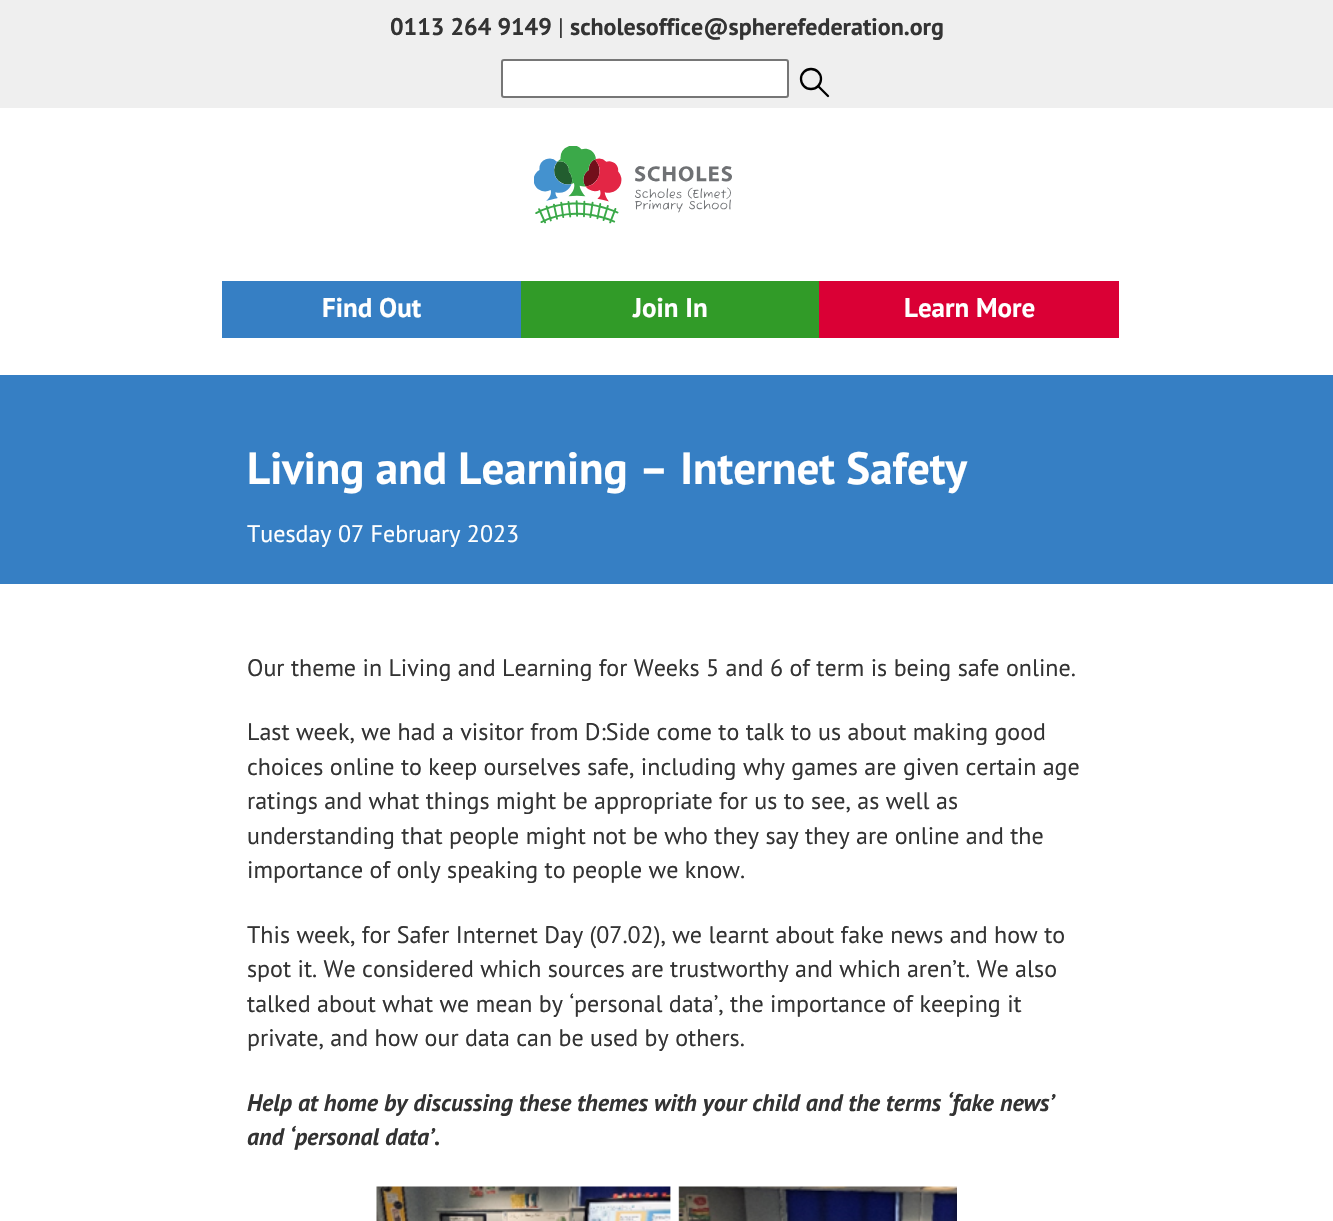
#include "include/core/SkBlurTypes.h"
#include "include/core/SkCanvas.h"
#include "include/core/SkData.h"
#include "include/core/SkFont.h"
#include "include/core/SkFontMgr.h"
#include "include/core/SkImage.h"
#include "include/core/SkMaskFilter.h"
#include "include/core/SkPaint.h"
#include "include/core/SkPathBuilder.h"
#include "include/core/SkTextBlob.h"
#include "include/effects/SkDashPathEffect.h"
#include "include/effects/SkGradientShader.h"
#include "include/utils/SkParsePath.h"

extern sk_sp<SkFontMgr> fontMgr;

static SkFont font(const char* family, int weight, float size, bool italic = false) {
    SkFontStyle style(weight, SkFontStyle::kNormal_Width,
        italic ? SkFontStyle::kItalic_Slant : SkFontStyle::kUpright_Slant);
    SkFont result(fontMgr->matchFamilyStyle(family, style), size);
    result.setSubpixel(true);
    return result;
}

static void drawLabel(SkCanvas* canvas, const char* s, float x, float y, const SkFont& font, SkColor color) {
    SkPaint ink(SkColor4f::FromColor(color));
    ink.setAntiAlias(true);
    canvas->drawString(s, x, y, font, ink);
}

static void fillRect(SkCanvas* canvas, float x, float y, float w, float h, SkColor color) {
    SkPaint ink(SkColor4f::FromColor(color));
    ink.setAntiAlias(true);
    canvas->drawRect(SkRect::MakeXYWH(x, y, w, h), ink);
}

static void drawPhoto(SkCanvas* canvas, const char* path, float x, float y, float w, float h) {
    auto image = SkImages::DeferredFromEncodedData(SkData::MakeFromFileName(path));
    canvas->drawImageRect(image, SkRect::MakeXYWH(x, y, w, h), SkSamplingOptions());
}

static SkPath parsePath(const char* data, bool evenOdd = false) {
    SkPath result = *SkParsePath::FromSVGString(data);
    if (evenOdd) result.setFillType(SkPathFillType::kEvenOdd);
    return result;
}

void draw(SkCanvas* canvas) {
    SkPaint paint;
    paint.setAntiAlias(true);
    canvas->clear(0xFFEFEFEF);
    SkFont font1 = font("PT Sans", 700, 24);
    drawLabel(canvas, "0113 264 9149", 390, 35, font1, 0xFF333333);
    SkFont font2 = font("PT Sans", 400, 24);
    drawLabel(canvas, "|", 558, 35, font2, 0xFF333333);
    drawLabel(canvas, "scholesoffice@spherefederation.org", 570, 35, font1, 0xFF333333);
    paint.setColor(0xFFFFFFFF);
    canvas->drawRoundRect(SkRect::MakeXYWH(502, 60, 286, 37), 2, 2, paint);
    paint.setStroke(true);
    paint.setStrokeWidth(2);
    paint.setColor(0xFF767676);
    canvas->drawRoundRect(SkRect::MakeXYWH(502, 60, 286, 37), 2, 2, paint);
    paint.setStrokeWidth(2.3f);
    paint.setStrokeCap(SkPaint::kRound_Cap);
    paint.setStrokeJoin(SkPaint::kRound_Join);
    paint.setColor(0xFF000000);
    canvas->drawPath(parsePath("M818 86L828 96"), paint);
    paint.setStrokeCap(SkPaint::kButt_Cap);
    paint.setStrokeJoin(SkPaint::kMiter_Join);
    canvas->drawCircle(811, 79, 10, paint);
    fillRect(canvas, 0, 108, 1333, 267, 0xFFFFFFFF);
    drawPhoto(canvas, "assets/img1.png", 534, 146, 198, 78);
    fillRect(canvas, 222, 281, 299, 57, 0xFF367FC4);
    SkFont font3 = font("PT Sans", 700, 27);
    drawLabel(canvas, "Find Out", 322, 317, font3, 0xFFFFFFFF);
    fillRect(canvas, 521, 281, 298, 57, 0xFF319B28);
    drawLabel(canvas, "Join In", 633, 317, font3, 0xFFFFFFFF);
    fillRect(canvas, 819, 281, 300, 57, 0xFFDA0035);
    drawLabel(canvas, "Learn More", 904, 317, font3, 0xFFFFFFFF);
    fillRect(canvas, 0, 375, 1333, 209, 0xFF367FC4);
    SkFont font4 = font("PT Sans", 700, 45);
    drawLabel(canvas, "Living and Learning – Internet Safety", 247, 484, font4, 0xFFFFFFFF);
    drawLabel(canvas, "Tuesday 07 February 2023", 247, 542, font2, 0xFFFFFFFF);
    fillRect(canvas, 0, 584, 1333, 637, 0xFFFFFFFF);
    drawLabel(canvas, "Our theme in Living and Learning for Weeks 5 and 6 of term is being safe online.", 247, 676, font2, 0xFF333333);
    drawLabel(canvas, "Last week, we had a visitor from D:Side come to talk to us about making good", 247, 740, font2, 0xFF333333);
    drawLabel(canvas, "choices online to keep ourselves safe, including why games are given certain age", 247, 775, font2, 0xFF333333);
    drawLabel(canvas, "ratings and what things might be appropriate for us to see, as well as", 247, 809, font2, 0xFF333333);
    drawLabel(canvas, "understanding that people might not be who they say they are online and the", 247, 844, font2, 0xFF333333);
    drawLabel(canvas, "importance of only speaking to people we know.", 247, 878, font2, 0xFF333333);
    drawLabel(canvas, "This week, for Safer Internet Day (07.02), we learnt about fake news and how to", 247, 943, font2, 0xFF333333);
    drawLabel(canvas, "spot it. We considered which sources are trustworthy and which aren’t. We also", 247, 977, font2, 0xFF333333);
    drawLabel(canvas, "talked about what we mean by ‘personal data’, the importance of keeping it", 247, 1012, font2, 0xFF333333);
    drawLabel(canvas, "private, and how our data can be used by others.", 247, 1046, font2, 0xFF333333);
    SkFont font5 = font("PT Sans", 700, 24, true);
    drawLabel(canvas, "Help at home by discussing these themes with your child and the terms ‘fake news’", 247, 1111, font5, 0xFF333333);
    drawLabel(canvas, "and ‘personal data’.", 247, 1145, font5, 0xFF333333);
    drawPhoto(canvas, "assets/img2.png", 376, 1186, 581, 35);
}
